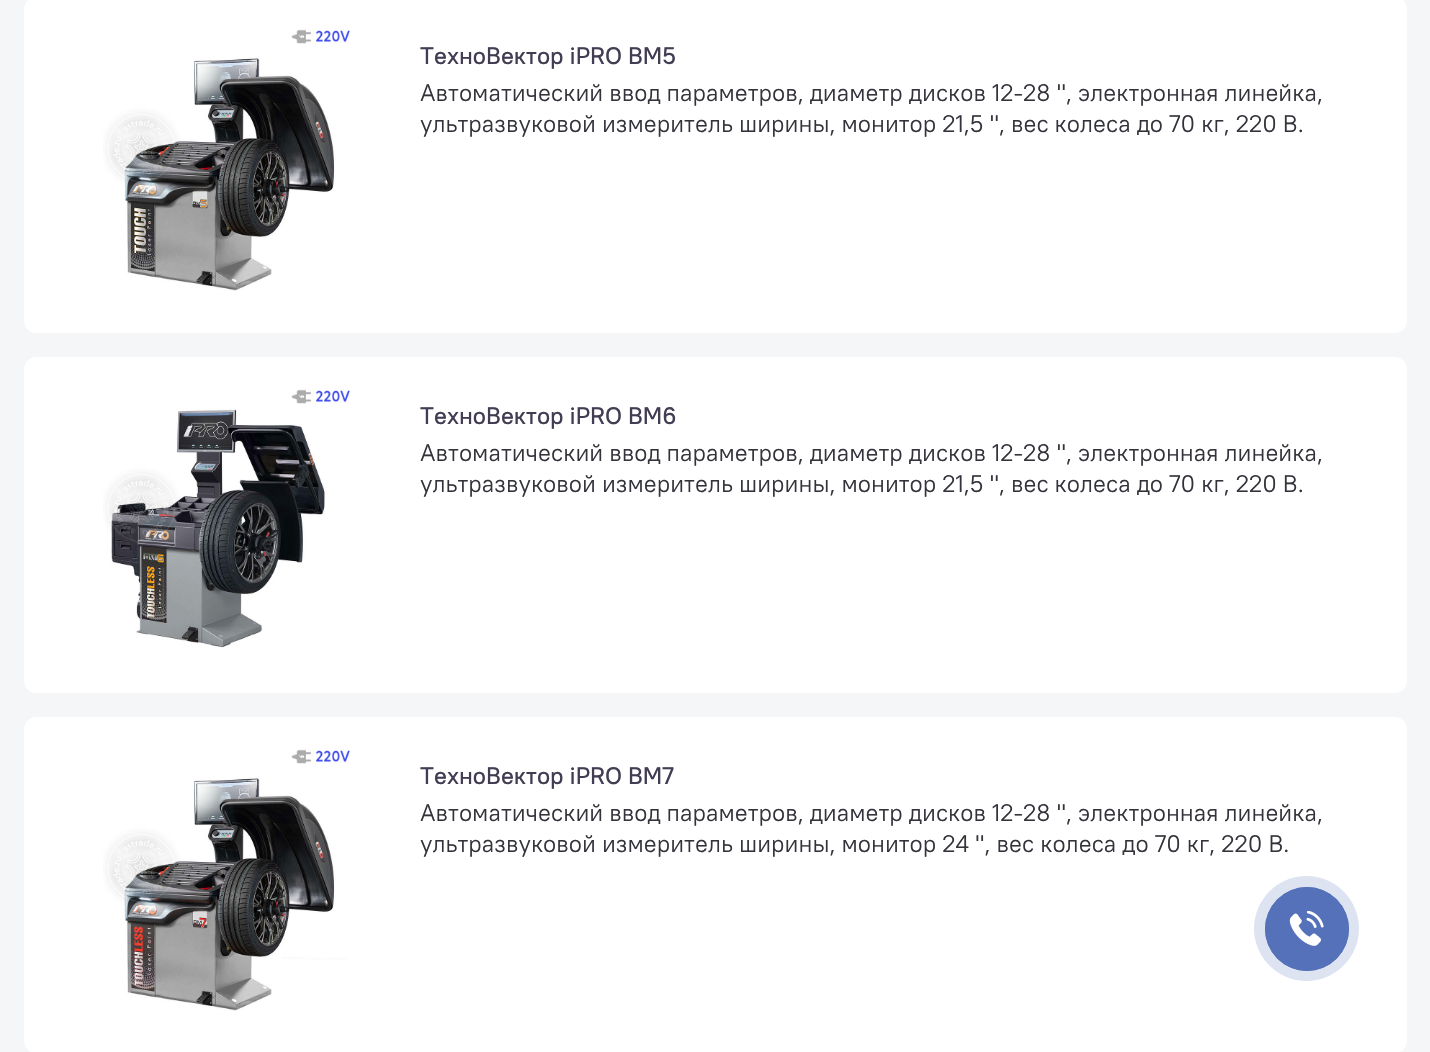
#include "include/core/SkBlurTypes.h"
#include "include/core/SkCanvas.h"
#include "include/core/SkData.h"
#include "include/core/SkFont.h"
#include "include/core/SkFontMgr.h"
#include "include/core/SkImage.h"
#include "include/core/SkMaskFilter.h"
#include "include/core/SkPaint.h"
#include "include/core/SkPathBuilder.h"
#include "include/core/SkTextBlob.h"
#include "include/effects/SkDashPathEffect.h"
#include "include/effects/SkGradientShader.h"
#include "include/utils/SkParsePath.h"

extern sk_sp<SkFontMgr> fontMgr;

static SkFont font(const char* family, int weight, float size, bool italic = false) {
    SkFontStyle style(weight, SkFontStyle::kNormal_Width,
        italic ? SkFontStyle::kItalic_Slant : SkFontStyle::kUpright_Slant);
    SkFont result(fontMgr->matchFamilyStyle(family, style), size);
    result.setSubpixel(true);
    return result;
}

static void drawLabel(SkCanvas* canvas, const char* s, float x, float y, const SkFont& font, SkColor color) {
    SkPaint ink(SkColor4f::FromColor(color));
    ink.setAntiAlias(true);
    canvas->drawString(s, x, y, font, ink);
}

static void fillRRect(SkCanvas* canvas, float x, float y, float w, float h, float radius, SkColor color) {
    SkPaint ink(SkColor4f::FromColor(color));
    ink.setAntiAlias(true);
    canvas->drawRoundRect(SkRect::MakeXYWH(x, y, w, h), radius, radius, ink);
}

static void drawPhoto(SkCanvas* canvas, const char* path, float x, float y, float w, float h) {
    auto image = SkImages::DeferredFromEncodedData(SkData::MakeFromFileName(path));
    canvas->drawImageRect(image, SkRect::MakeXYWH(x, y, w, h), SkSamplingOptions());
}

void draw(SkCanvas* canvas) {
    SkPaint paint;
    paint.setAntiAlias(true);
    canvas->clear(0xFFF5F6F7);
    fillRRect(canvas, 24, -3, 1383, 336, 12, 0xFFFFFFFF);
    drawPhoto(canvas, "assets/img1.png", 103, 29, 247, 262);
    SkFont font1 = font("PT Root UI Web", 500, 24);
    drawLabel(canvas, "ТехноВектор iPRO BM5", 420, 64, font1, 0xFF433D54);
    SkFont font2 = font("PT Root UI Web", 400, 24);
    drawLabel(canvas, "Автоматический ввод параметров, диаметр дисков 12-28 \", электронная линейка,", 420, 101, font2, 0xFF33343B);
    drawLabel(canvas, "ультразвуковой измеритель ширины, монитор 21,5 \", вес колеса до 70 кг, 220 В.", 420, 132, font2, 0xFF33343B);
    fillRRect(canvas, 24, 357, 1383, 336, 12, 0xFFFFFFFF);
    drawPhoto(canvas, "assets/img2.png", 103, 389, 247, 259);
    drawLabel(canvas, "ТехноВектор iPRO BM6", 420, 424, font1, 0xFF433D54);
    drawLabel(canvas, "Автоматический ввод параметров, диаметр дисков 12-28 \", электронная линейка,", 420, 461, font2, 0xFF33343B);
    drawLabel(canvas, "ультразвуковой измеритель ширины, монитор 21,5 \", вес колеса до 70 кг, 220 В.", 420, 492, font2, 0xFF33343B);
    fillRRect(canvas, 24, 717, 1383, 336, 12, 0xFFFFFFFF);
    drawPhoto(canvas, "assets/img3.png", 103, 749, 247, 262);
    drawLabel(canvas, "ТехноВектор iPRO BM7", 420, 784, font1, 0xFF433D54);
    drawLabel(canvas, "Автоматический ввод параметров, диаметр дисков 12-28 \", электронная линейка,", 420, 821, font2, 0xFF33343B);
    drawLabel(canvas, "ультразвуковой измеритель ширины, монитор 24 \", вес колеса до 70 кг, 220 В.", 420, 852, font2, 0xFF33343B);
    paint.setColor(0xFFDDE3F1);
    canvas->drawCircle(1306.5f, 928.5f, 52.5f, paint);
    paint.setStroke(true);
    paint.setStrokeWidth(1);
    paint.setColor(0xFF5471B9);
    canvas->drawCircle(1307, 929, 41.5f, paint);
    paint.setStroke(false);
    canvas->drawCircle(1307, 929, 42, paint);
    drawPhoto(canvas, "assets/img4.png", 1289, 911, 35, 35);
}
